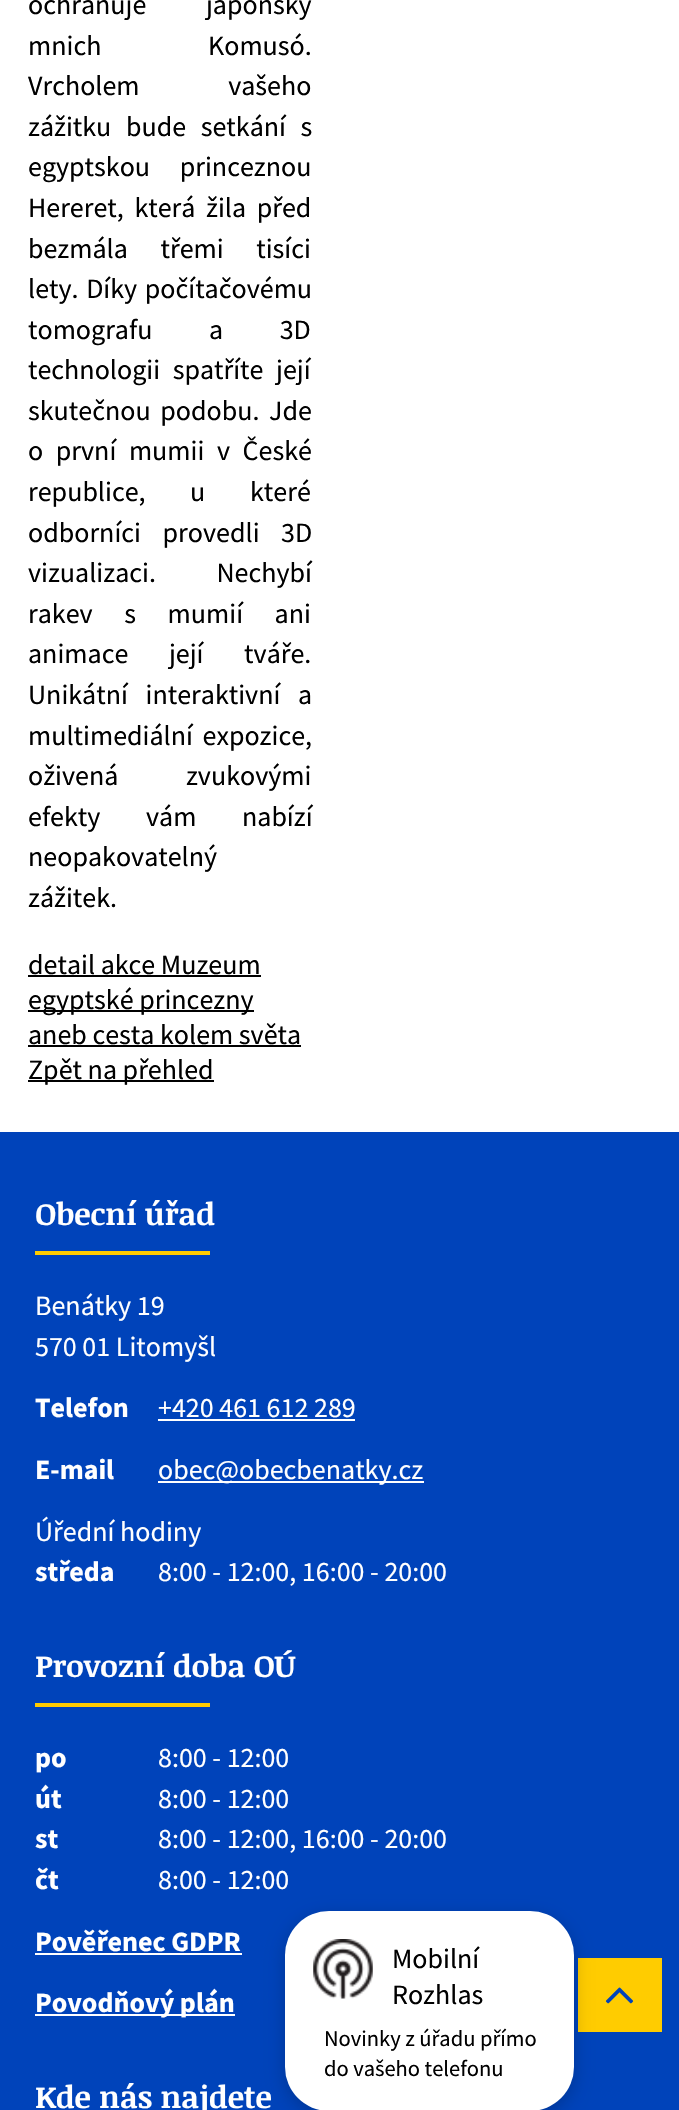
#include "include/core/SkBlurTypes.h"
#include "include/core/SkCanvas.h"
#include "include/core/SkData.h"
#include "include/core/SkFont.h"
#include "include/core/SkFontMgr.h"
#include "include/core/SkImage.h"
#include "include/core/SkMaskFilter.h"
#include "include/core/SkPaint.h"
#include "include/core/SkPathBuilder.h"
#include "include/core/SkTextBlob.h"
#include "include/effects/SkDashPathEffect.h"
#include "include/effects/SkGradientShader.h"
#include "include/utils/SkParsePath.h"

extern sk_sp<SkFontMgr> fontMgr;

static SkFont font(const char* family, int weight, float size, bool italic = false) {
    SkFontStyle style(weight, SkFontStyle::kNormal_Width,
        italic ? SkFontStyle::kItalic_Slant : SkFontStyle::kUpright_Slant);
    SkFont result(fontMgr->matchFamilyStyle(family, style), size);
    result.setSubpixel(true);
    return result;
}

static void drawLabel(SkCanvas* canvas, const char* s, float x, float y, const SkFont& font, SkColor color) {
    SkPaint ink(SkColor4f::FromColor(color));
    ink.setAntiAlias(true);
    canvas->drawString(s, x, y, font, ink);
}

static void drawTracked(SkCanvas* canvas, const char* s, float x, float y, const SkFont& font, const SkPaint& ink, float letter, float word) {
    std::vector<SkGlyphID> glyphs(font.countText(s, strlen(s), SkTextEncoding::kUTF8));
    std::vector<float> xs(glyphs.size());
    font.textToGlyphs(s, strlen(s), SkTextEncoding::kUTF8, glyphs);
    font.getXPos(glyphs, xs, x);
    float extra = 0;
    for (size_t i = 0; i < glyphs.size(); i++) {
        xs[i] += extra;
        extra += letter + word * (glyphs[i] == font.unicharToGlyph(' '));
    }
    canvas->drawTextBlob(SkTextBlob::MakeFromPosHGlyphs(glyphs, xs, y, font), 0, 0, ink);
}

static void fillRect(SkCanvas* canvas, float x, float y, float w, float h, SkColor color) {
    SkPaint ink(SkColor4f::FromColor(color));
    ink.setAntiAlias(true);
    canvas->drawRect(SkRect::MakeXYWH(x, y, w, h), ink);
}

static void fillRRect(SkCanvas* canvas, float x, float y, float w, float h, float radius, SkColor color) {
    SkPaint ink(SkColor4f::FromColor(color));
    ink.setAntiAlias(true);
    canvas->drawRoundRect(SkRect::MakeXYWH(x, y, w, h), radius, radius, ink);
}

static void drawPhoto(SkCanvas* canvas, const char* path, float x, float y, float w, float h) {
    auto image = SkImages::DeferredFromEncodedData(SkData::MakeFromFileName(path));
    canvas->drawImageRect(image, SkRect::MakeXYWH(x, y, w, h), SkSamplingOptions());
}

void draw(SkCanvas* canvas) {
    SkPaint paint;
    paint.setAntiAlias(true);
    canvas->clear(0xFFFFFFFF);
    SkFont font1 = font("Source Sans Pro", 400, 28);
    paint.setColor(0xFF000000);
    drawTracked(canvas, "ochraňuje japonský", 28, 14, font1, paint, 0, 54);
    drawTracked(canvas, "mnich Komusó.", 28, 55, font1, paint, 0, 101);
    drawTracked(canvas, "Vrcholem vašeho", 28, 95, font1, paint, 0, 83);
    drawTracked(canvas, "zážitku bude setkání s", 28, 136, font1, paint, 0, 9);
    drawTracked(canvas, "egyptskou princeznou", 28, 176, font1, paint, 0, 24);
    drawTracked(canvas, "Hereret, která žila před", 28, 217, font1, paint, 0, 5);
    drawTracked(canvas, "bezmála třemi tisíci", 28, 258, font1, paint, 0, 27);
    drawTracked(canvas, "lety. Díky počítačovému", 28, 298, font1, paint, 0, 2);
    drawTracked(canvas, "tomografu a 3D", 28, 339, font1, paint, 0, 51);
    drawTracked(canvas, "technologii spatříte její", 28, 379, font1, paint, 0, 7);
    drawTracked(canvas, "skutečnou podobu. Jde", 28, 420, font1, paint, 0, 4);
    drawTracked(canvas, "o první mumii v České", 28, 460, font1, paint, 0, 7);
    drawTracked(canvas, "republice, u které", 28, 501, font1, paint, 0, 39);
    drawTracked(canvas, "odborníci provedli 3D", 28, 542, font1, paint, 0, 16);
    drawTracked(canvas, "vizualizaci. Nechybí", 28, 582, font1, paint, 0, 55);
    drawTracked(canvas, "rakev s mumií ani", 28, 623, font1, paint, 0, 26);
    drawTracked(canvas, "animace její tváře.", 28, 663, font1, paint, 0, 35);
    drawTracked(canvas, "Unikátní interaktivní a", 28, 704, font1, paint, 0, 12);
    drawTracked(canvas, "multimediální expozice,", 28, 745, font1, paint, 0, 4);
    drawTracked(canvas, "oživená zvukovými", 28, 785, font1, paint, 0, 62);
    drawTracked(canvas, "efekty vám nabízí", 28, 826, font1, paint, 0, 40);
    drawLabel(canvas, "neopakovatelný", 28, 866, font1, 0xFF000000);
    drawLabel(canvas, "zážitek.", 28, 907, font1, 0xFF000000);
    drawLabel(canvas, "detail akce Muzeum", 28, 974, font1, 0xFF000000);
    fillRect(canvas, 28, 975, 233, 2, 0xFF000000);
    fillRect(canvas, 28, 1010, 226, 2, 0xFF000000);
    drawLabel(canvas, "egyptské princezny", 28, 1009, font1, 0xFF000000);
    drawLabel(canvas, "aneb cesta kolem světa", 28, 1044, font1, 0xFF000000);
    fillRect(canvas, 28, 1045, 273, 2, 0xFF000000);
    fillRect(canvas, 28, 1080, 186, 2, 0xFF000000);
    drawLabel(canvas, "Zpět na přehled", 28, 1079, font1, 0xFF000000);
    fillRect(canvas, 0, 1132, 679, 978, 0xFF0043BA);
    fillRect(canvas, 578, 1958, 84, 74, 0xFFFFCC00);
    paint.setColor(0x33000000);
    paint.setMaskFilter(SkMaskFilter::MakeBlur(kNormal_SkBlurStyle, 9));
    canvas->drawRoundRect(SkRect::MakeXYWH(285, 1916, 289, 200), 44, 44, paint);
    paint.setMaskFilter(nullptr);
    fillRRect(canvas, 285, 1911, 289, 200, 44, 0xFFFFFFFF);
    drawPhoto(canvas, "assets/img1.png", 313, 1939, 60, 60);
    drawLabel(canvas, "Mobilní", 392, 1968, font1, 0xFF000000);
    drawLabel(canvas, "Rozhlas", 392, 2004, font1, 0xFF000000);
    SkFont font2 = font("Source Sans Pro", 400, 22.5f);
    drawLabel(canvas, "Novinky z úřadu přímo", 324, 2046, font2, 0xFF000000);
    drawLabel(canvas, "do vašeho telefonu", 324, 2076, font2, 0xFF000000);
    drawPhoto(canvas, "assets/img2.png", 605, 1987, 29, 17);
    SkFont font3 = font("Noticia Text", 700, 30.75f);
    drawLabel(canvas, "Obecní úřad", 35, 1225, font3, 0xFFFFFFFF);
    fillRect(canvas, 35, 1251, 175, 4, 0xFFFFCC00);
    drawLabel(canvas, "Benátky 19", 35, 1315, font1, 0xFFFFFFFF);
    drawLabel(canvas, "570 01 Litomyšl", 35, 1356, font1, 0xFFFFFFFF);
    SkFont font4 = font("Source Sans Pro", 700, 28);
    drawLabel(canvas, "Telefon", 35, 1417, font4, 0xFFFFFFFF);
    drawLabel(canvas, "+420 461 612 289", 158, 1417, font1, 0xFFFFFFFF);
    fillRect(canvas, 158, 1419, 197, 2, 0xFFFFFFFF);
    drawLabel(canvas, "E-mail", 35, 1479, font4, 0xFFFFFFFF);
    fillRect(canvas, 158, 1481, 266, 2, 0xFFFFFFFF);
    drawLabel(canvas, "obec@obecbenatky.cz", 158, 1479, font1, 0xFFFFFFFF);
    drawLabel(canvas, "Úřední hodiny", 35, 1541, font1, 0xFFFFFFFF);
    drawLabel(canvas, "středa", 35, 1581, font4, 0xFFFFFFFF);
    drawLabel(canvas, "8:00 - 12:00, 16:00 - 20:00", 158, 1581, font1, 0xFFFFFFFF);
    drawLabel(canvas, "Provozní doba OÚ", 35, 1677, font3, 0xFFFFFFFF);
    fillRect(canvas, 35, 1703, 175, 4, 0xFFFFCC00);
    drawLabel(canvas, "po", 35, 1767, font4, 0xFFFFFFFF);
    drawLabel(canvas, "8:00 - 12:00", 158, 1767, font1, 0xFFFFFFFF);
    drawLabel(canvas, "út", 35, 1808, font4, 0xFFFFFFFF);
    drawLabel(canvas, "8:00 - 12:00", 158, 1808, font1, 0xFFFFFFFF);
    drawLabel(canvas, "st", 35, 1848, font4, 0xFFFFFFFF);
    drawLabel(canvas, "8:00 - 12:00, 16:00 - 20:00", 158, 1848, font1, 0xFFFFFFFF);
    drawLabel(canvas, "čt", 35, 1889, font4, 0xFFFFFFFF);
    drawLabel(canvas, "8:00 - 12:00", 158, 1889, font1, 0xFFFFFFFF);
    drawLabel(canvas, "Pověřenec GDPR", 35, 1951, font4, 0xFFFFFFFF);
    fillRect(canvas, 35, 1953, 207, 2, 0xFFFFFFFF);
    fillRect(canvas, 35, 2014, 200, 2, 0xFFFFFFFF);
    drawLabel(canvas, "Povodňový plán", 35, 2012, font4, 0xFFFFFFFF);
    drawLabel(canvas, "Kde nás najdete", 35, 2108, font3, 0xFFFFFFFF);
}
